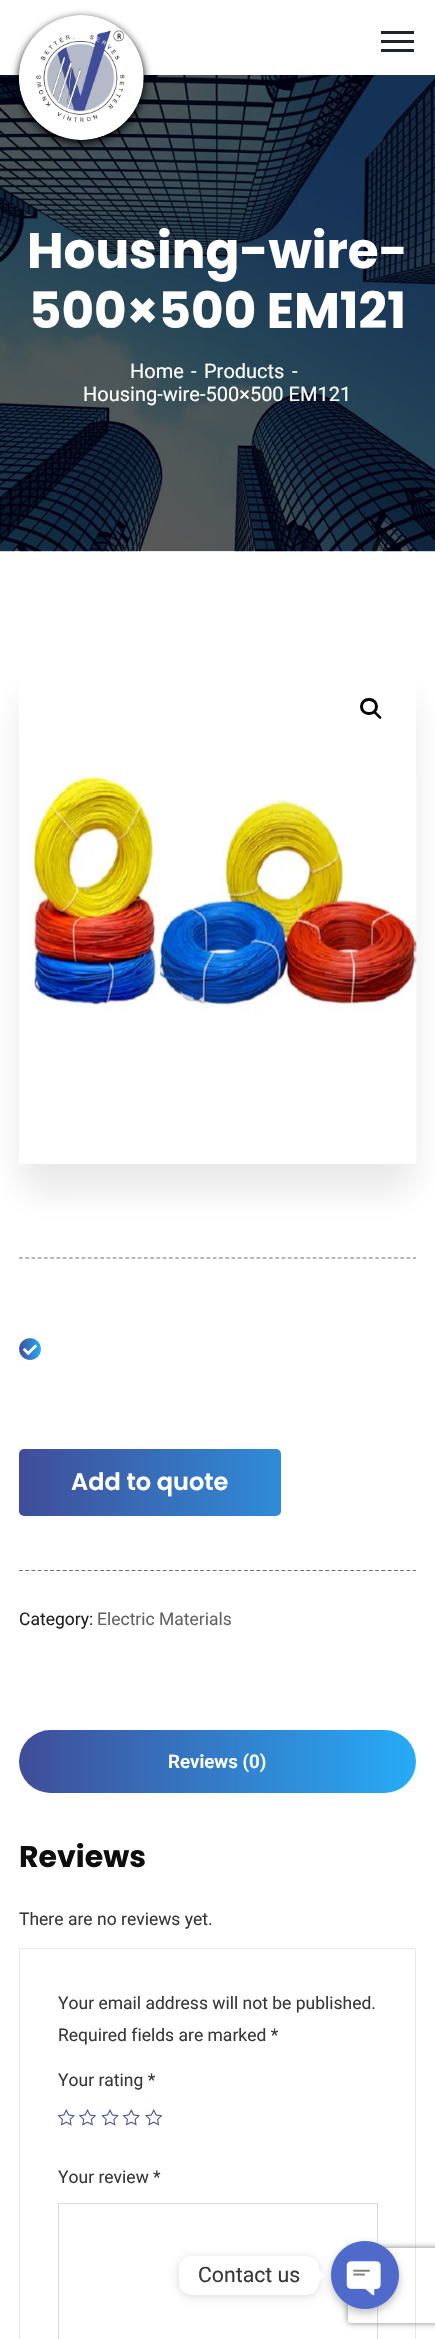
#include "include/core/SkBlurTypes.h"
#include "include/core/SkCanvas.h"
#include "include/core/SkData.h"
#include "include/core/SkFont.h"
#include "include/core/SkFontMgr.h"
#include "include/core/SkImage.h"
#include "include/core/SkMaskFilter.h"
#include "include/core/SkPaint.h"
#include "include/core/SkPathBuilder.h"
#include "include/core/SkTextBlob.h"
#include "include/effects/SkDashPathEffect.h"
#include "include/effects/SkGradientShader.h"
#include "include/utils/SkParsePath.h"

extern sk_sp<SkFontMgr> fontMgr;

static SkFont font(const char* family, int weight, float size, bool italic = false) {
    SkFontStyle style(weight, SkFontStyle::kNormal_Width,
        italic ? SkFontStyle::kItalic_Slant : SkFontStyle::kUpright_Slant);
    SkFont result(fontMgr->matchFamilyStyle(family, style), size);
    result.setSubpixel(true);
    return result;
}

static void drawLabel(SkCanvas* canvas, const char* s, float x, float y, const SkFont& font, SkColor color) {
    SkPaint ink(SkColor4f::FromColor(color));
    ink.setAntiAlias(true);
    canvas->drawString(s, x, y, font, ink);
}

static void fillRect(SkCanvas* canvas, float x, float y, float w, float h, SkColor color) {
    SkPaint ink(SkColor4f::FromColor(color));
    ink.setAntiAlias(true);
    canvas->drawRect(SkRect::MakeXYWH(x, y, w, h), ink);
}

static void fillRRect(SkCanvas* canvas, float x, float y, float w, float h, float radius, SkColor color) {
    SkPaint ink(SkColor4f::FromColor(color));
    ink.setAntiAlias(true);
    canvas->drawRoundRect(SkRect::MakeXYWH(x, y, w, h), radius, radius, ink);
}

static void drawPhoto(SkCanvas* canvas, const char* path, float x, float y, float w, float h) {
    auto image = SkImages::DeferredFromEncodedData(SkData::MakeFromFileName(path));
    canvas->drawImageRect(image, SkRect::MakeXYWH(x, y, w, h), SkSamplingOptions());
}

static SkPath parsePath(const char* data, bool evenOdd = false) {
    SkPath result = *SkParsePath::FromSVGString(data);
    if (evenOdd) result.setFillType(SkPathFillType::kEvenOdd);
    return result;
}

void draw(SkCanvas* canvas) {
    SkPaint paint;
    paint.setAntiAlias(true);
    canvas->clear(0xFFFFFFFF);
    drawPhoto(canvas, "assets/img2.png", 0, 75, 435, 477);
    paint.setColor(0xFF000000);
    paint.setMaskFilter(SkMaskFilter::MakeBlur(kNormal_SkBlurStyle, 4));
    canvas->drawRoundRect(SkRect::MakeXYWH(19, 18, 125, 125), 62.5f, 62.5f, paint);
    paint.setMaskFilter(nullptr);
    drawPhoto(canvas, "assets/img1.png", 18, 15, 126, 125);
    fillRect(canvas, 381, 31, 33, 3, 0xFF1F2233);
    fillRect(canvas, 381, 40, 33, 3, 0xFF1F2233);
    fillRect(canvas, 381, 49, 33, 3, 0xFF1F2233);
    SkFont font1 = font("Poppins", 700, 50);
    drawLabel(canvas, "Housing-wire-", 27, 268, font1, 0xFFFFFFFF);
    drawLabel(canvas, "500×500 EM121", 29, 328, font1, 0xFFFFFFFF);
    SkFont font2 = font("Roboto", 400, 20);
    drawLabel(canvas, "Home", 130, 378, font2, 0xFFFFFFFF);
    drawLabel(canvas, "-", 191, 378, font2, 0xFFFFFFFF);
    drawLabel(canvas, "Products", 204, 378, font2, 0xFFFFFFFF);
    drawLabel(canvas, "-", 292, 378, font2, 0xFFFFFFFF);
    drawLabel(canvas, "Housing-wire-500×500 EM121", 83, 401, font2, 0xFFFFFFFF);
    canvas->save();
    canvas->clipPath(parsePath("M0 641H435V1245H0ZM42 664H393C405.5 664 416 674.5 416 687V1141C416 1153.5 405.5 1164 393 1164H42C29.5 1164 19 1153.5 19 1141V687C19 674.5 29.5 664 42 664Z", true), true);
    paint.setColor(0x17101010);
    paint.setMaskFilter(SkMaskFilter::MakeBlur(kNormal_SkBlurStyle, 17));
    canvas->drawRoundRect(SkRect::MakeXYWH(19, 693, 397, 500), 23, 23, paint);
    paint.setMaskFilter(nullptr);
    canvas->restore();
    drawPhoto(canvas, "assets/img3.png", 19, 775, 398, 389);
    paint.setStroke(true);
    paint.setStrokeWidth(3);
    paint.setColor(0xFF000000);
    canvas->drawRoundRect(SkRect::MakeXYWH(361.5f, 699.5f, 15, 14), 7, 7, paint);
    paint.setStroke(false);
    canvas->drawPath(parsePath("M374 711.5C375.5 710 377.5 713.5 378.5 714C379 715 382.5 717 381 718.5C379.5 720 377.5 716.5 376.5 716C376 715 372.5 713 374 711.5Z"), paint);
    paint.setStroke(true);
    paint.setStrokeWidth(1.2f);
    paint.setColor(0xFF6F6F6F);
    paint.setPathEffect(SkDashPathEffect::Make({{3.75f, 2.5f}}, 0));
    canvas->drawPath(parsePath("M19 1258H416"), paint);
    paint.setPathEffect(nullptr);
    drawPhoto(canvas, "assets/img4.png", 19, 1338, 22, 22);
    paint.setStroke(false);
    {
        const SkColor colors[] = {0xFF404D99, 0xFF27ABF7, 0xFF404D99};
        const float stops[] = {0, 0.5f, 1};
        const SkPoint ends[] = {{19, 1483}, {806, 1483}};
        paint.setShader(SkGradientShader::MakeLinear(ends, colors, stops, 3, SkTileMode::kClamp));
        paint.setAlpha(255);
    }
    canvas->drawRoundRect(SkRect::MakeXYWH(19, 1449, 262, 67), 5, 5, paint);
    SkFont font3 = font("Poppins", 600, 24);
    drawLabel(canvas, "Add to quote", 71, 1490, font3, 0xFFFFFFFF);
    paint.setStroke(true);
    paint.setShader(nullptr);
    paint.setColor(0xFF6F6F6F);
    paint.setPathEffect(SkDashPathEffect::Make({{3.75f, 2.5f}}, 0));
    canvas->drawPath(parsePath("M19 1570.5H416"), paint);
    paint.setPathEffect(nullptr);
    SkFont font4 = font("Roboto", 400, 17.5f);
    drawLabel(canvas, "Category:", 19, 1625, font4, 0xFF222222);
    drawLabel(canvas, "Electric Materials", 97, 1625, font4, 0xFF636363);
    paint.setStroke(false);
    {
        const SkColor colors[] = {0xFF404D99, 0xFF27ABF7};
        const float stops[] = {0, 1};
        const SkPoint ends[] = {{19, 1761}, {416, 1761}};
        paint.setShader(SkGradientShader::MakeLinear(ends, colors, stops, 2, SkTileMode::kClamp));
        paint.setAlpha(255);
    }
    canvas->drawRoundRect(SkRect::MakeXYWH(19, 1730, 397, 63), 31.5f, 31.5f, paint);
    SkFont font5 = font("Roboto", 600, 18.75f);
    drawLabel(canvas, "Reviews (0)", 168, 1768, font5, 0xFFFFFFFF);
    SkFont font6 = font("Poppins", 700, 30);
    drawLabel(canvas, "Reviews", 19, 1867, font6, 0xFF0E0E0E);
    drawLabel(canvas, "There are no reviews yet.", 19, 1925, font4, 0xFF383838);
    paint.setStroke(true);
    paint.setStrokeWidth(1);
    paint.setShader(nullptr);
    paint.setColor(0xFFE9E9E9);
    canvas->drawRect(SkRect::MakeXYWH(19.5f, 1948.5f, 396, 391), paint);
    drawLabel(canvas, "Your email address will not be published.", 58, 2009, font4, 0xFF383838);
    drawLabel(canvas, "Required fields are marked *", 58, 2041, font4, 0xFF383838);
    drawLabel(canvas, "Your rating *", 58, 2086, font4, 0xFF383838);
    drawPhoto(canvas, "assets/img5.png", 57, 2109, 18, 17);
    drawPhoto(canvas, "assets/img6.png", 78, 2109, 19, 17);
    drawPhoto(canvas, "assets/img7.png", 101, 2109, 18, 17);
    drawPhoto(canvas, "assets/img5.png", 122, 2109, 18, 17);
    drawPhoto(canvas, "assets/img8.png", 145, 2109, 18, 17);
    drawLabel(canvas, "Your review *", 58, 2183, font4, 0xFF383838);
    paint.setColor(0xFFD8D8D8);
    canvas->drawRect(SkRect::MakeXYWH(58.5f, 2203.5f, 319, 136), paint);
    paint.setStroke(false);
    paint.setColor(0x26000000);
    paint.setMaskFilter(SkMaskFilter::MakeBlur(kNormal_SkBlurStyle, 5));
    canvas->drawRoundRect(SkRect::MakeXYWH(179, 2258, 140, 38), 13, 13, paint);
    paint.setMaskFilter(nullptr);
    fillRRect(canvas, 179, 2256, 140, 39, 13, 0xFFFFFFFF);
    SkFont font7 = font("Roboto", 400, 21.25f);
    drawLabel(canvas, "Contact us", 198, 2282, font7, 0xFF383838);
    paint.setColor(0xFFFFFFFF);
    canvas->drawPath(parsePath("M319 2282V2269.5L325 2275.5Z"), paint);
    paint.setColor(0x40000000);
    paint.setMaskFilter(SkMaskFilter::MakeBlur(kNormal_SkBlurStyle, 4));
    canvas->drawRoundRect(SkRect::MakeXYWH(331, 2245, 68, 68), 34, 34, paint);
    paint.setMaskFilter(nullptr);
    canvas->save();
    canvas->clipPath(parsePath("M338 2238H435V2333H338ZM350.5 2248H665.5C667 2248 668 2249 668 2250.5V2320.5C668 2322 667 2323 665.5 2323H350.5C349 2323 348 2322 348 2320.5V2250.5C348 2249 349 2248 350.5 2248Z", true), true);
    paint.setColor(0xFF808080);
    paint.setMaskFilter(SkMaskFilter::MakeBlur(kNormal_SkBlurStyle, 3));
    canvas->drawRoundRect(SkRect::MakeXYWH(348, 2248, 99, 75), 2.5f, 2.5f, paint);
    paint.setMaskFilter(nullptr);
    canvas->restore();
    drawPhoto(canvas, "assets/img9.png", 331, 2241, 68, 68);
}
